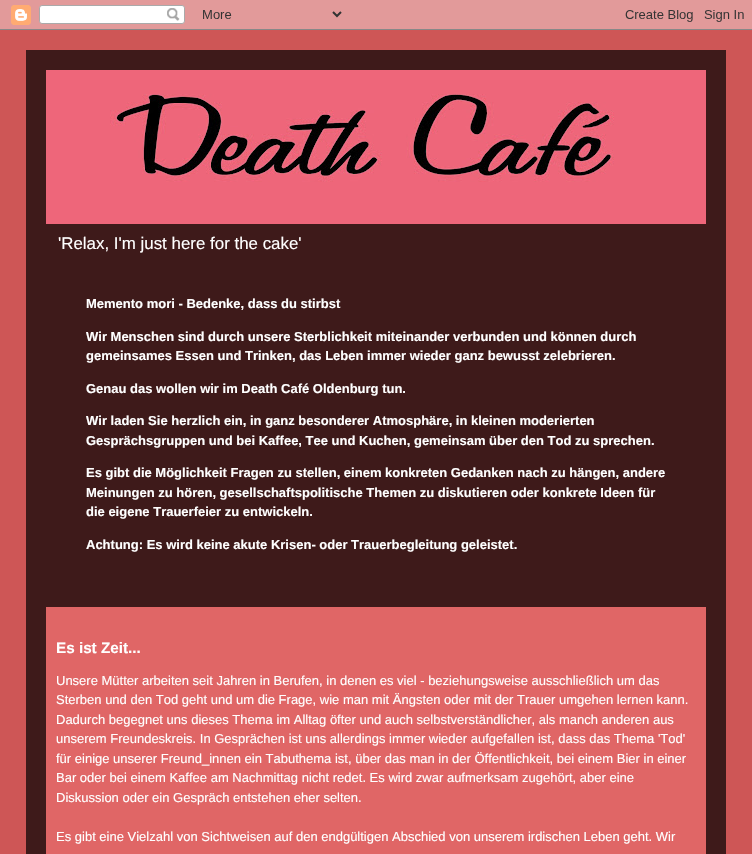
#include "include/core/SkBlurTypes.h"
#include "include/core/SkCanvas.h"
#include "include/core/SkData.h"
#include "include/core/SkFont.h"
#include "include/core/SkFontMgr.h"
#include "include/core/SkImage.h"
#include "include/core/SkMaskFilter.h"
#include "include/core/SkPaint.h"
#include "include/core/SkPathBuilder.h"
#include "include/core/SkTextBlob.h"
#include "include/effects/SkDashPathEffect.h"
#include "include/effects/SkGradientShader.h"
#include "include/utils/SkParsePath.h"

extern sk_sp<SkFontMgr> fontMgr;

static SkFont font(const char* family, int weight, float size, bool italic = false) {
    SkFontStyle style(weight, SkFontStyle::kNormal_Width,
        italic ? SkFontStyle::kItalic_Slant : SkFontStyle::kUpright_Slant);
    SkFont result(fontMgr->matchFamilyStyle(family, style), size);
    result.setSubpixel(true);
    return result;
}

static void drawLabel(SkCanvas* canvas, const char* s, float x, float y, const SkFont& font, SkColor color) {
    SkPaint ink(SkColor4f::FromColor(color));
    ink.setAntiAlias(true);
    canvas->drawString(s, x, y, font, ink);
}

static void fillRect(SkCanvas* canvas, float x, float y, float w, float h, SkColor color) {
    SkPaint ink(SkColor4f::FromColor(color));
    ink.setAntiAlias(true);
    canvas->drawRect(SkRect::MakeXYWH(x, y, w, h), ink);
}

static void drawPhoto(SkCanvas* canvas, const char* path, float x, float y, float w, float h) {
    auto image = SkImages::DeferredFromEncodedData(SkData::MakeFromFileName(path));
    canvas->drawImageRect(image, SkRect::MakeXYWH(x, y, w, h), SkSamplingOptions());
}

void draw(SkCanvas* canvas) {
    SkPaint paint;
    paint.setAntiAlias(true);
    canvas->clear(0xFFCE5656);
    drawPhoto(canvas, "assets/img1.png", 0, 0, 752, 30);
    fillRect(canvas, 26, 50, 700, 804, 0xFF3E1A1A);
    drawPhoto(canvas, "assets/img2.png", 46, 70, 660, 154);
    SkFont font1 = font("Liberation Sans", 400, 16.9f);
    drawLabel(canvas, "'Relax, I'm just here for the cake'", 58, 249, font1, 0xFFFFFFFF);
    SkFont font2 = font("Liberation Sans", 700, 13);
    drawLabel(canvas, "Memento mori - Bedenke, dass du stirbst", 86, 308, font2, 0xFFFFFFFF);
    drawLabel(canvas, "Wir Menschen sind durch unsere Sterblichkeit miteinander verbunden und können durch", 86, 341, font2, 0xFFFFFFFF);
    drawLabel(canvas, "gemeinsames Essen und Trinken, das Leben immer wieder ganz bewusst zelebrieren.", 86, 360, font2, 0xFFFFFFFF);
    drawLabel(canvas, "Genau das wollen wir im Death Café Oldenburg tun.", 86, 393, font2, 0xFFFFFFFF);
    drawLabel(canvas, "Wir laden Sie herzlich ein, in ganz besonderer Atmosphäre, in kleinen moderierten", 86, 425, font2, 0xFFFFFFFF);
    drawLabel(canvas, "Gesprächsgruppen und bei Kaffee, Tee und Kuchen, gemeinsam über den Tod zu sprechen.", 86, 445, font2, 0xFFFFFFFF);
    drawLabel(canvas, "Es gibt die Möglichkeit Fragen zu stellen, einem konkreten Gedanken nach zu hängen, andere", 86, 477, font2, 0xFFFFFFFF);
    drawLabel(canvas, "Meinungen zu hören, gesellschaftspolitische Themen zu diskutieren oder konkrete Ideen für", 86, 497, font2, 0xFFFFFFFF);
    drawLabel(canvas, "die eigene Trauerfeier zu entwickeln.", 86, 516, font2, 0xFFFFFFFF);
    drawLabel(canvas, "Achtung: Es wird keine akute Krisen- oder Trauerbegleitung geleistet.", 86, 549, font2, 0xFFFFFFFF);
    fillRect(canvas, 46, 607, 660, 247, 0xFFE06666);
    SkFont font3 = font("Liberation Sans", 700, 15.25f);
    drawLabel(canvas, "Es ist Zeit...", 56, 653, font3, 0xFFFFFFFF);
    SkFont font4 = font("Liberation Sans", 400, 13);
    drawLabel(canvas, "Unsere Mütter arbeiten seit Jahren in Berufen, in denen es viel - beziehungsweise ausschließlich um das", 56, 685, font4, 0xFFFFFFFF);
    drawLabel(canvas, "Sterben und den Tod geht und um die Frage, wie man mit Ängsten oder mit der Trauer umgehen lernen kann.", 56, 704, font4, 0xFFFFFFFF);
    drawLabel(canvas, "Dadurch begegnet uns dieses Thema im Alltag öfter und auch selbstverständlicher, als manch anderen aus", 56, 724, font4, 0xFFFFFFFF);
    drawLabel(canvas, "unserem Freundeskreis. In Gesprächen ist uns allerdings immer wieder aufgefallen ist, dass das Thema 'Tod'", 56, 743, font4, 0xFFFFFFFF);
    drawLabel(canvas, "für einige unserer Freund_innen ein Tabuthema ist, über das man in der Öffentlichkeit, bei einem Bier in einer", 56, 763, font4, 0xFFFFFFFF);
    drawLabel(canvas, "Bar oder bei einem Kaffee am Nachmittag nicht redet. Es wird zwar aufmerksam zugehört, aber eine", 56, 782, font4, 0xFFFFFFFF);
    drawLabel(canvas, "Diskussion oder ein Gespräch entstehen eher selten.", 56, 802, font4, 0xFFFFFFFF);
    drawLabel(canvas, "Es gibt eine Vielzahl von Sichtweisen auf den endgültigen Abschied von unserem irdischen Leben geht. Wir", 56, 841, font4, 0xFFFFFFFF);
}
